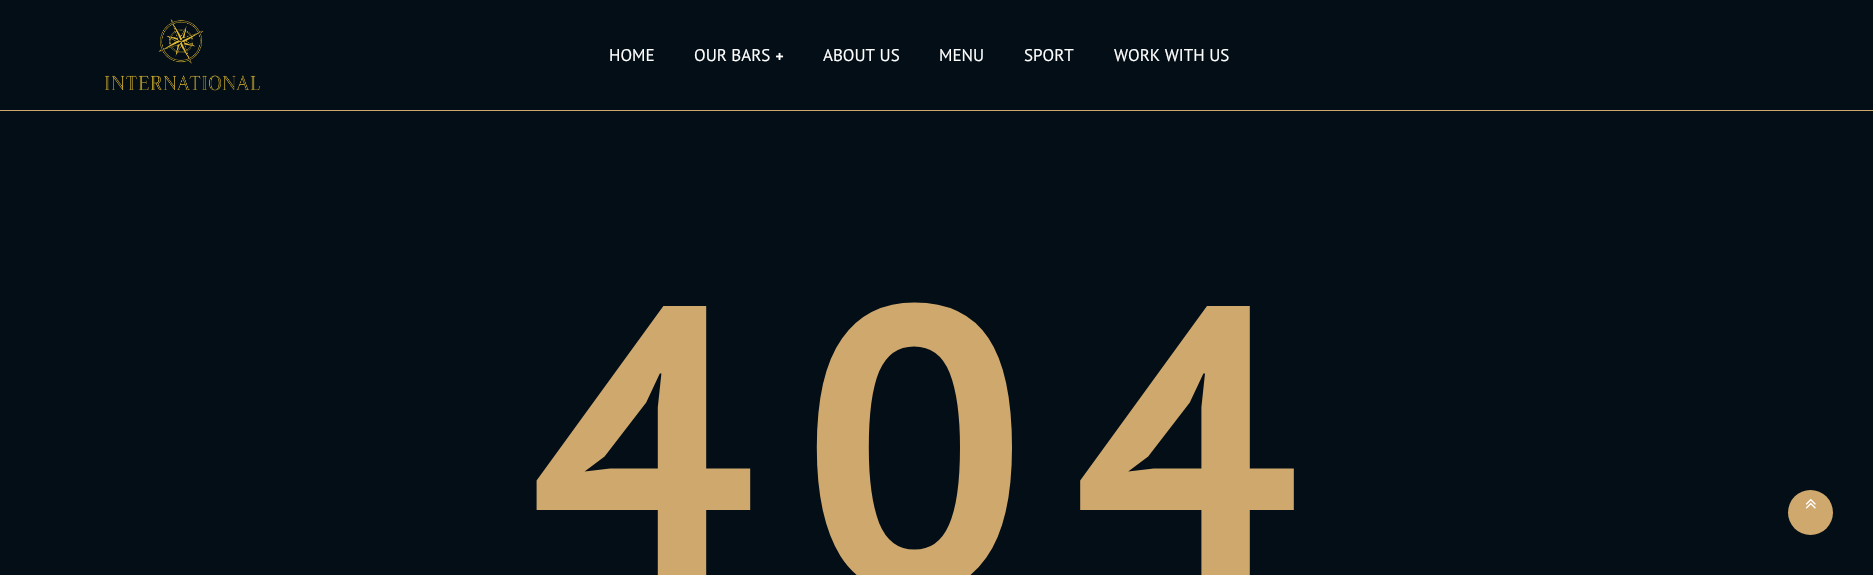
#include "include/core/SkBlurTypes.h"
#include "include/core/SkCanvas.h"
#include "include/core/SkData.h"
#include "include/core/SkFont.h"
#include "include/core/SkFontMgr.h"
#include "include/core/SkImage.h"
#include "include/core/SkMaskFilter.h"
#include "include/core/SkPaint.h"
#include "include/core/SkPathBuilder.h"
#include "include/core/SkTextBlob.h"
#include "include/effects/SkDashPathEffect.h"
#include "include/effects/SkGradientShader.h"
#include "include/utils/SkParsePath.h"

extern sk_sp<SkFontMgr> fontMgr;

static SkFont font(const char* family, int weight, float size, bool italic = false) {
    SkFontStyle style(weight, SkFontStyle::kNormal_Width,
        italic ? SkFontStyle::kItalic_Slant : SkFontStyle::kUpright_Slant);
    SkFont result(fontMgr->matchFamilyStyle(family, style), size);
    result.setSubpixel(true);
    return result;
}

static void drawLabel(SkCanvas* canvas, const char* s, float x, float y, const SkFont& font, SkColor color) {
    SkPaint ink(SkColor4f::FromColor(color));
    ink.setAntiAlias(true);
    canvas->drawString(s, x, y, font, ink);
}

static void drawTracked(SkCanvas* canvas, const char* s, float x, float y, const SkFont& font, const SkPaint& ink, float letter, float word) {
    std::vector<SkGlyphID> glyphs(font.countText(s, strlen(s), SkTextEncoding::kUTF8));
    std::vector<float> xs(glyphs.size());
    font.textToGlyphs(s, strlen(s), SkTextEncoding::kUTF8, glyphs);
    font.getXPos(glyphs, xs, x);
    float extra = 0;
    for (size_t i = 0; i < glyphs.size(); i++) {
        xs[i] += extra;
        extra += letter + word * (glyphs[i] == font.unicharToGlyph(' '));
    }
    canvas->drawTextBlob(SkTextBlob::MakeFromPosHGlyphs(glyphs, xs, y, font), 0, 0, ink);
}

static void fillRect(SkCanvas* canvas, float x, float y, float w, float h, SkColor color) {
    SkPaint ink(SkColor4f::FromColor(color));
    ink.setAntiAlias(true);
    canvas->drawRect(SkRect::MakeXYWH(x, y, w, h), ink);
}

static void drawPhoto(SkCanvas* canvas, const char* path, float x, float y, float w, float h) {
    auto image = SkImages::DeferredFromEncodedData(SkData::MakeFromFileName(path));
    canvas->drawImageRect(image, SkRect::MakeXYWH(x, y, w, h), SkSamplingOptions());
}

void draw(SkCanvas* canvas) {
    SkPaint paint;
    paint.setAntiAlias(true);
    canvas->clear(0xFF030E16);
    fillRect(canvas, 0, 110, 1873, 1, 0xFFCFA86E);
    drawPhoto(canvas, "assets/img1.png", 105, 19, 155, 72);
    SkFont font1 = font("PT Sans", 400, 17);
    drawLabel(canvas, "HOME", 609, 61, font1, 0xFFFFFFFF);
    drawLabel(canvas, "OUR BARS", 694, 61, font1, 0xFFFFFFFF);
    drawPhoto(canvas, "assets/img2.png", 776, 52, 8, 8);
    drawLabel(canvas, "ABOUT US", 823, 61, font1, 0xFFFFFFFF);
    drawLabel(canvas, "MENU", 939, 61, font1, 0xFFFFFFFF);
    drawLabel(canvas, "SPORT", 1024, 61, font1, 0xFFFFFFFF);
    drawLabel(canvas, "WORK WITH US", 1114, 61, font1, 0xFFFFFFFF);
    SkFont font2 = font("PT Sans", 700, 400);
    paint.setColor(0xFFCFA86E);
    drawTracked(canvas, "404", 529, 588, font2, paint, 45, 0);
    canvas->drawCircle(1810.5f, 512.5f, 22.5f, paint);
    drawPhoto(canvas, "assets/img3.png", 1805, 498, 11, 11);
}
